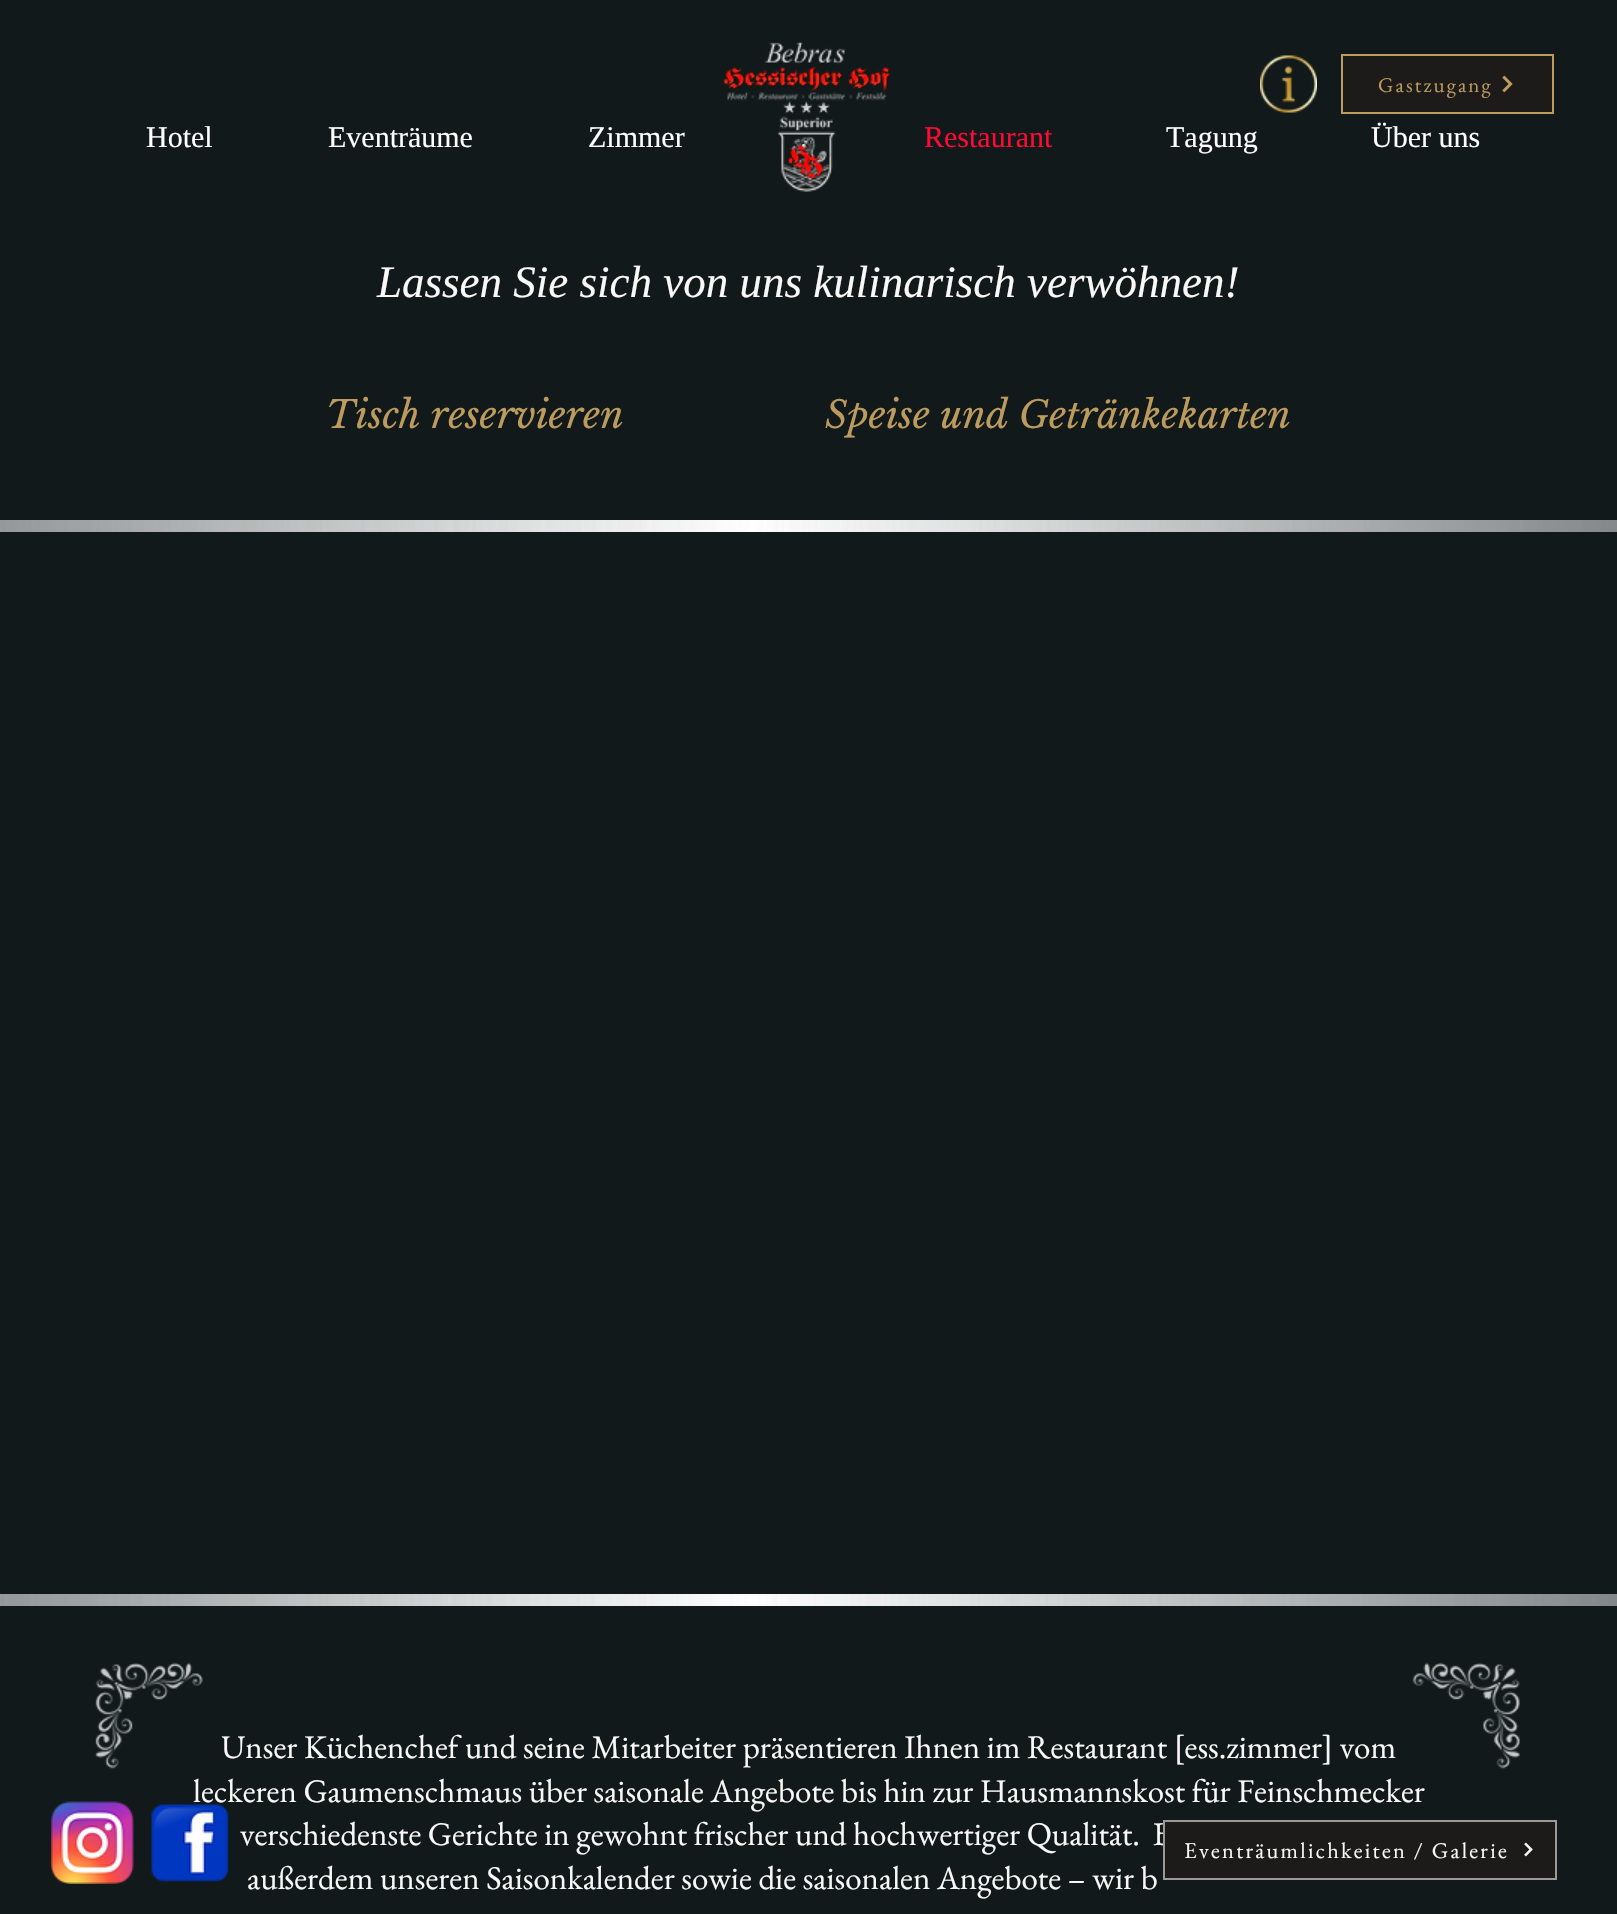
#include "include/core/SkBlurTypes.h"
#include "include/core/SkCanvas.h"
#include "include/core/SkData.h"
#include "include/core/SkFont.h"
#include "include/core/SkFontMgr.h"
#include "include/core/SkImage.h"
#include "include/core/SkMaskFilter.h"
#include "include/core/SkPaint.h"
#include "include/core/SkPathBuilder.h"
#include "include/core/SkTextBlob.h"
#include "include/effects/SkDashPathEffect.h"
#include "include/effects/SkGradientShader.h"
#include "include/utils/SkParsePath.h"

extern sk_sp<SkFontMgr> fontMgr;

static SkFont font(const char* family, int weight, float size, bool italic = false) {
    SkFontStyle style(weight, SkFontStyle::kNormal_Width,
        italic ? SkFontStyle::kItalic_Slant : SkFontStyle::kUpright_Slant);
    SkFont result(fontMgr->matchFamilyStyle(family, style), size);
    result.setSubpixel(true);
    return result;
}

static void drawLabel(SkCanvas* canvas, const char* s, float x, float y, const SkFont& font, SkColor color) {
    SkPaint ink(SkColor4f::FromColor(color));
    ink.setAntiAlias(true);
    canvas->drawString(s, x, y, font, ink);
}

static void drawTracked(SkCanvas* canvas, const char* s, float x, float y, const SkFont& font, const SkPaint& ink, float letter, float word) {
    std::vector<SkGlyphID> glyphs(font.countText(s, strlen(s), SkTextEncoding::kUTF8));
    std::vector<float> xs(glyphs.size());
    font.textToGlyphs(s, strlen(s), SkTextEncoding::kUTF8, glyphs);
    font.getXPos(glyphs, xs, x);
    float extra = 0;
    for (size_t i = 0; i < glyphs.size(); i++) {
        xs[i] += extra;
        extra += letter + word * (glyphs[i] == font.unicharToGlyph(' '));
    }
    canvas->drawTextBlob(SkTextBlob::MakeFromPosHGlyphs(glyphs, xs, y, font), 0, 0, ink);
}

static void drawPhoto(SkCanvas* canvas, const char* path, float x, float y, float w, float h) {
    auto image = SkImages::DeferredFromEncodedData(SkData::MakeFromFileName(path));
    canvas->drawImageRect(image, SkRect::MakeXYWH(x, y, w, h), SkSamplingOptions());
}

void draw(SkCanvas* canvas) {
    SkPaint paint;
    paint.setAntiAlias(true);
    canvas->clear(0xFF11191A);
    drawPhoto(canvas, "assets/img1.png", 1260, 55, 57, 58);
    paint.setColor(0xFF1D1B19);
    canvas->drawRect(SkRect::MakeXYWH(1342, 55, 211, 58), paint);
    paint.setStroke(true);
    paint.setStrokeWidth(2);
    paint.setColor(0xFFBC9B5D);
    canvas->drawRect(SkRect::MakeXYWH(1342, 55, 211, 58), paint);
    SkFont font1 = font("EB Garamond", 400, 21);
    paint.setStroke(false);
    drawTracked(canvas, "Gastzugang", 1378, 92, font1, paint, 2.1f, 0);
    drawPhoto(canvas, "assets/img2.png", 1502, 75, 11, 18);
    SkFont font2 = font("Liberation Serif", 400, 30);
    drawLabel(canvas, ".", 800, 147, font2, 0xFFFFFFFF);
    drawPhoto(canvas, "assets/img3.png", 723, 42, 167, 150);
    drawLabel(canvas, "Hotel", 146, 147, font2, 0xFFFFFFFF);
    drawLabel(canvas, "Eventräume", 328, 147, font2, 0xFFFFFFFF);
    drawLabel(canvas, "Zimmer", 588, 147, font2, 0xFFFFFFFF);
    drawLabel(canvas, "Restaurant", 924, 147, font2, 0xFFFF0A34);
    drawLabel(canvas, "Tagung", 1166, 147, font2, 0xFFFFFFFF);
    drawLabel(canvas, "Über uns", 1371, 147, font2, 0xFFFFFFFF);
    drawPhoto(canvas, "assets/img4.png", 51, 1801, 83, 83);
    SkFont font3 = font("EB Garamond", 400, 33);
    drawLabel(canvas, "leckeren Gaumenschmaus über saisonale Angebote bis hin zur Hausmannskost für Feinschmecker", 193, 1802, font3, 0xFFF9F8F6);
    drawPhoto(canvas, "assets/img5.png", 151, 1804, 78, 78);
    SkFont font4 = font("Liberation Serif", 400, 45, true);
    drawLabel(canvas, "Lassen Sie sich von uns kulinarisch verwöhnen!", 377, 297, font4, 0xFFF9F8F6);
    SkFont font5 = font("Libre Baskerville", 400, 37.5f, true);
    drawLabel(canvas, "Tisch reservieren", 326, 428, font5, 0xFFBC9B5D);
    drawLabel(canvas, "Speise und Getränkekarten", 825, 428, font5, 0xFFBC9B5D);
    drawPhoto(canvas, "assets/img6.png", 0, 520, 1617, 12);
    drawPhoto(canvas, "assets/img7.png", 0, 1594, 1617, 12);
    drawPhoto(canvas, "assets/img8.png", 95, 1662, 108, 107);
    drawPhoto(canvas, "assets/img9.png", 1412, 1662, 108, 107);
    drawLabel(canvas, "Unser Küchenchef und seine Mitarbeiter präsentieren Ihnen im Restaurant [ess.zimmer] vom", 221, 1758, font3, 0xFFF9F8F6);
    drawLabel(canvas, "verschiedenste Gerichte in gewohnt frischer und hochwertiger Qualität.  B", 240, 1845, font3, 0xFFF9F8F6);
    drawLabel(canvas, "außerdem unseren Saisonkalender sowie die saisonalen Angebote – wir b", 247, 1889, font3, 0xFFF9F8F6);
    paint.setColor(0xFF1D1B19);
    canvas->drawRect(SkRect::MakeXYWH(1164, 1821, 392, 58), paint);
    paint.setStroke(true);
    paint.setColor(0xFF9C9996);
    canvas->drawRect(SkRect::MakeXYWH(1164, 1821, 392, 58), paint);
    SkFont font6 = font("EB Garamond", 400, 22.5f);
    paint.setStroke(false);
    paint.setColor(0xFFF9F8F6);
    drawTracked(canvas, "Eventräumlichkeiten / Galerie", 1184, 1858, font6, paint, 2.25f, 0);
    drawPhoto(canvas, "assets/img10.png", 1524, 1842, 9, 15);
}
